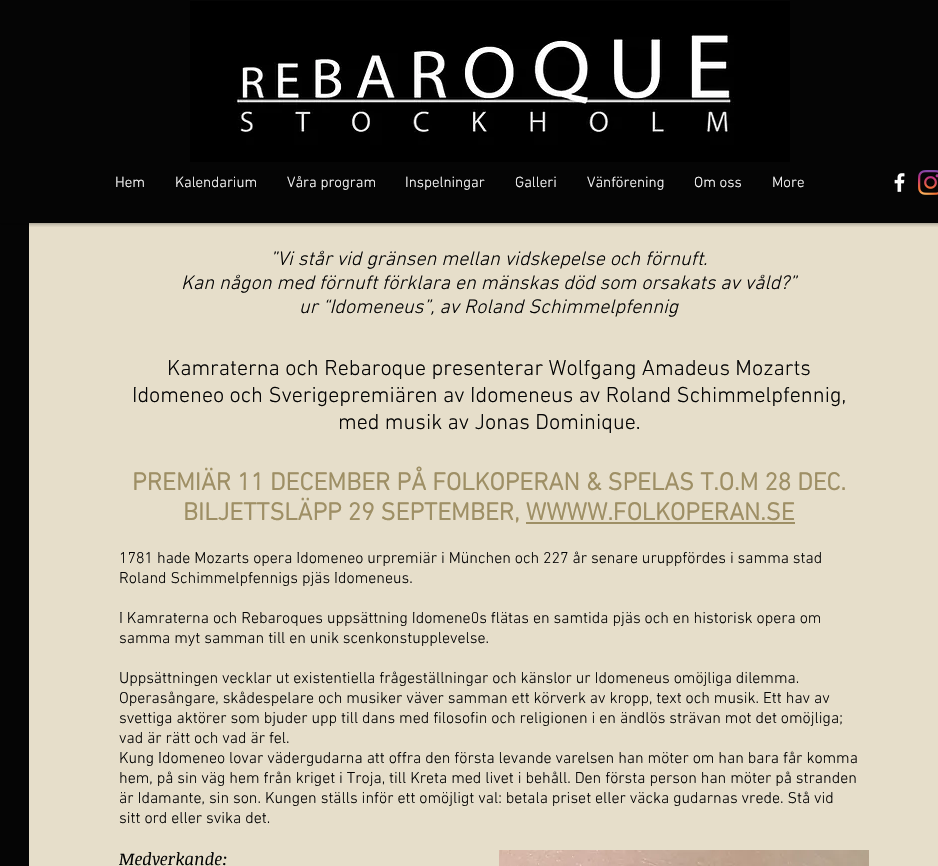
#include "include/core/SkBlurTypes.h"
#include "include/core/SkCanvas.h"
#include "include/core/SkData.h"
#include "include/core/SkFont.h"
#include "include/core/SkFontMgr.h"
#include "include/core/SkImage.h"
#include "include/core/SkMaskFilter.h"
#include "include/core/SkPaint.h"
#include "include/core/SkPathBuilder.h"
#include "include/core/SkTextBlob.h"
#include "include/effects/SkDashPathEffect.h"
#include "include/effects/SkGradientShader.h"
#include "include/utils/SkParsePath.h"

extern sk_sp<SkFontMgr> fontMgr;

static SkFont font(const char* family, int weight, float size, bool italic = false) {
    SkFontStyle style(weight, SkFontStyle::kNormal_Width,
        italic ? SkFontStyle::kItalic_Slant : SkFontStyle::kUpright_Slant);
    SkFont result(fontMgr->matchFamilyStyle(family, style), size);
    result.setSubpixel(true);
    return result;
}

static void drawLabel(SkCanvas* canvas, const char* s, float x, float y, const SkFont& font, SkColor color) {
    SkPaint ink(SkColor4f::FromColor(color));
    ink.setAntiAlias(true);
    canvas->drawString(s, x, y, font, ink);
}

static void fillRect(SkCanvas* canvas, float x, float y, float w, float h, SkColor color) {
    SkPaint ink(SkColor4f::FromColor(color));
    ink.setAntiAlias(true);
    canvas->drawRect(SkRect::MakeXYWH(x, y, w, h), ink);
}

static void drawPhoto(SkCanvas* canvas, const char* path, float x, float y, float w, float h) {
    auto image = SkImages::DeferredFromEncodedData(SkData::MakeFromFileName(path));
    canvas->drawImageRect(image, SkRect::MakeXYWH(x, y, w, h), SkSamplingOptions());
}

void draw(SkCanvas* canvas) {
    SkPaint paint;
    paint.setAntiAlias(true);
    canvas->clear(0xFF050505);
    fillRect(canvas, 29, 223, 909, 643, 0xFFE6DECA);
    canvas->save();
    canvas->clipRect(SkRect::MakeXYWH(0, 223, 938, 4));
    paint.setColor(0x80000000);
    paint.setMaskFilter(SkMaskFilter::MakeBlur(kNormal_SkBlurStyle, 2.5f));
    canvas->drawRect(SkRect::MakeXYWH(0, 0, 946, 223), paint);
    paint.setMaskFilter(nullptr);
    canvas->restore();
    drawPhoto(canvas, "assets/img1.png", 190, 1, 600, 161);
    SkFont font1 = font("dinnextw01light", 300, 15);
    drawLabel(canvas, "Hem", 115, 187, font1, 0xFFFFFFFF);
    drawLabel(canvas, "Kalendarium", 175, 187, font1, 0xFFFFFFFF);
    drawLabel(canvas, "Våra program", 287, 187, font1, 0xFFFFFFFF);
    drawLabel(canvas, "Inspelningar", 405, 187, font1, 0xFFFFFFFF);
    drawLabel(canvas, "Galleri", 515, 187, font1, 0xFFFFFFFF);
    drawLabel(canvas, "Vänförening", 587, 187, font1, 0xFFFFFFFF);
    drawLabel(canvas, "Om oss", 694, 187, font1, 0xFFFFFFFF);
    drawLabel(canvas, "More", 772, 187, font1, 0xFFFFFFFF);
    drawPhoto(canvas, "assets/img2.png", 894, 173, 11, 19);
    drawPhoto(canvas, "assets/img3.png", 918, 170, 20, 25);
    SkFont font2 = font("dinnextw01light", 300, 20, true);
    drawLabel(canvas, "”Vi står vid gränsen mellan vidskepelse och förnuft.", 270, 265, font2, 0xFF050505);
    drawLabel(canvas, "Kan någon med förnuft förklara en mänskas död som orsakats av våld?”", 181, 289, font2, 0xFF050505);
    drawLabel(canvas, "ur “Idomeneus”, av Roland Schimmelpfennig", 299, 313, font2, 0xFF050505);
    SkFont font3 = font("dinnextw01light", 300, 22);
    drawLabel(canvas, "Kamraterna och Rebaroque presenterar Wolfgang Amadeus Mozarts", 167, 375, font3, 0xFF050505);
    drawLabel(canvas, "Idomeneo och Sverigepremiären av Idomeneus av Roland Schimmelpfennig,", 132, 402, font3, 0xFF050505);
    drawLabel(canvas, "med musik av Jonas Dominique.", 338, 429, font3, 0xFF050505);
    SkFont font4 = font("dinnextw01light", 700, 25);
    drawLabel(canvas, "PREMIÄR 11 DECEMBER PÅ FOLKOPERAN & SPELAS T.O.M 28 DEC.", 132, 490, font4, 0xFF9E8F65);
    drawLabel(canvas, "BILJETTSLÄPP 29 SEPTEMBER, WWWW.FOLKOPERAN.SE", 183, 520, font4, 0xFF9E8F65);
    fillRect(canvas, 526, 522, 269, 2, 0xFF9E8F65);
    SkFont font5 = font("dinnextw01light", 300, 16);
    drawLabel(canvas, "1781 hade Mozarts opera Idomeneo urpremiär i München och 227 år senare uruppfördes i samma stad", 119, 563, font5, 0xFF050505);
    drawLabel(canvas, "Roland Schimmelpfennigs pjäs Idomeneus.", 119, 583, font5, 0xFF050505);
    drawLabel(canvas, "I Kamraterna och Rebaroques uppsättning Idomene0s flätas en samtida pjäs och en historisk opera om", 119, 623, font5, 0xFF050505);
    drawLabel(canvas, "samma myt samman till en unik scenkonstupplevelse.", 119, 643, font5, 0xFF050505);
    drawLabel(canvas, "Uppsättningen vecklar ut existentiella frågeställningar och känslor ur Idomeneus omöjliga dilemma.", 119, 683, font5, 0xFF050505);
    drawLabel(canvas, "Operasångare, skådespelare och musiker väver samman ett körverk av kropp, text och musik. Ett hav av", 119, 703, font5, 0xFF050505);
    drawLabel(canvas, "svettiga aktörer som bjuder upp till dans med filosofin och religionen i en ändlös strävan mot det omöjliga;", 119, 723, font5, 0xFF050505);
    drawLabel(canvas, "vad är rätt och vad är fel.", 119, 743, font5, 0xFF050505);
    drawLabel(canvas, "Kung Idomeneo lovar vädergudarna att offra den första levande varelsen han möter om han bara får komma", 119, 763, font5, 0xFF050505);
    drawLabel(canvas, "hem, på sin väg hem från kriget i Troja, till Kreta med livet i behåll. Den första person han möter på stranden", 119, 783, font5, 0xFF050505);
    drawLabel(canvas, "är Idamante, sin son. Kungen ställs inför ett omöjligt val: betala priset eller väcka gudarnas vrede. Stå vid", 119, 803, font5, 0xFF050505);
    drawLabel(canvas, "sitt ord eller svika det.", 119, 823, font5, 0xFF050505);
    SkFont font6 = font("Noticia Text", 400, 17, true);
    drawLabel(canvas, "Medverkande:", 119, 865, font6, 0xFF050505);
    drawPhoto(canvas, "assets/img4.png", 499, 850, 370, 16);
}
